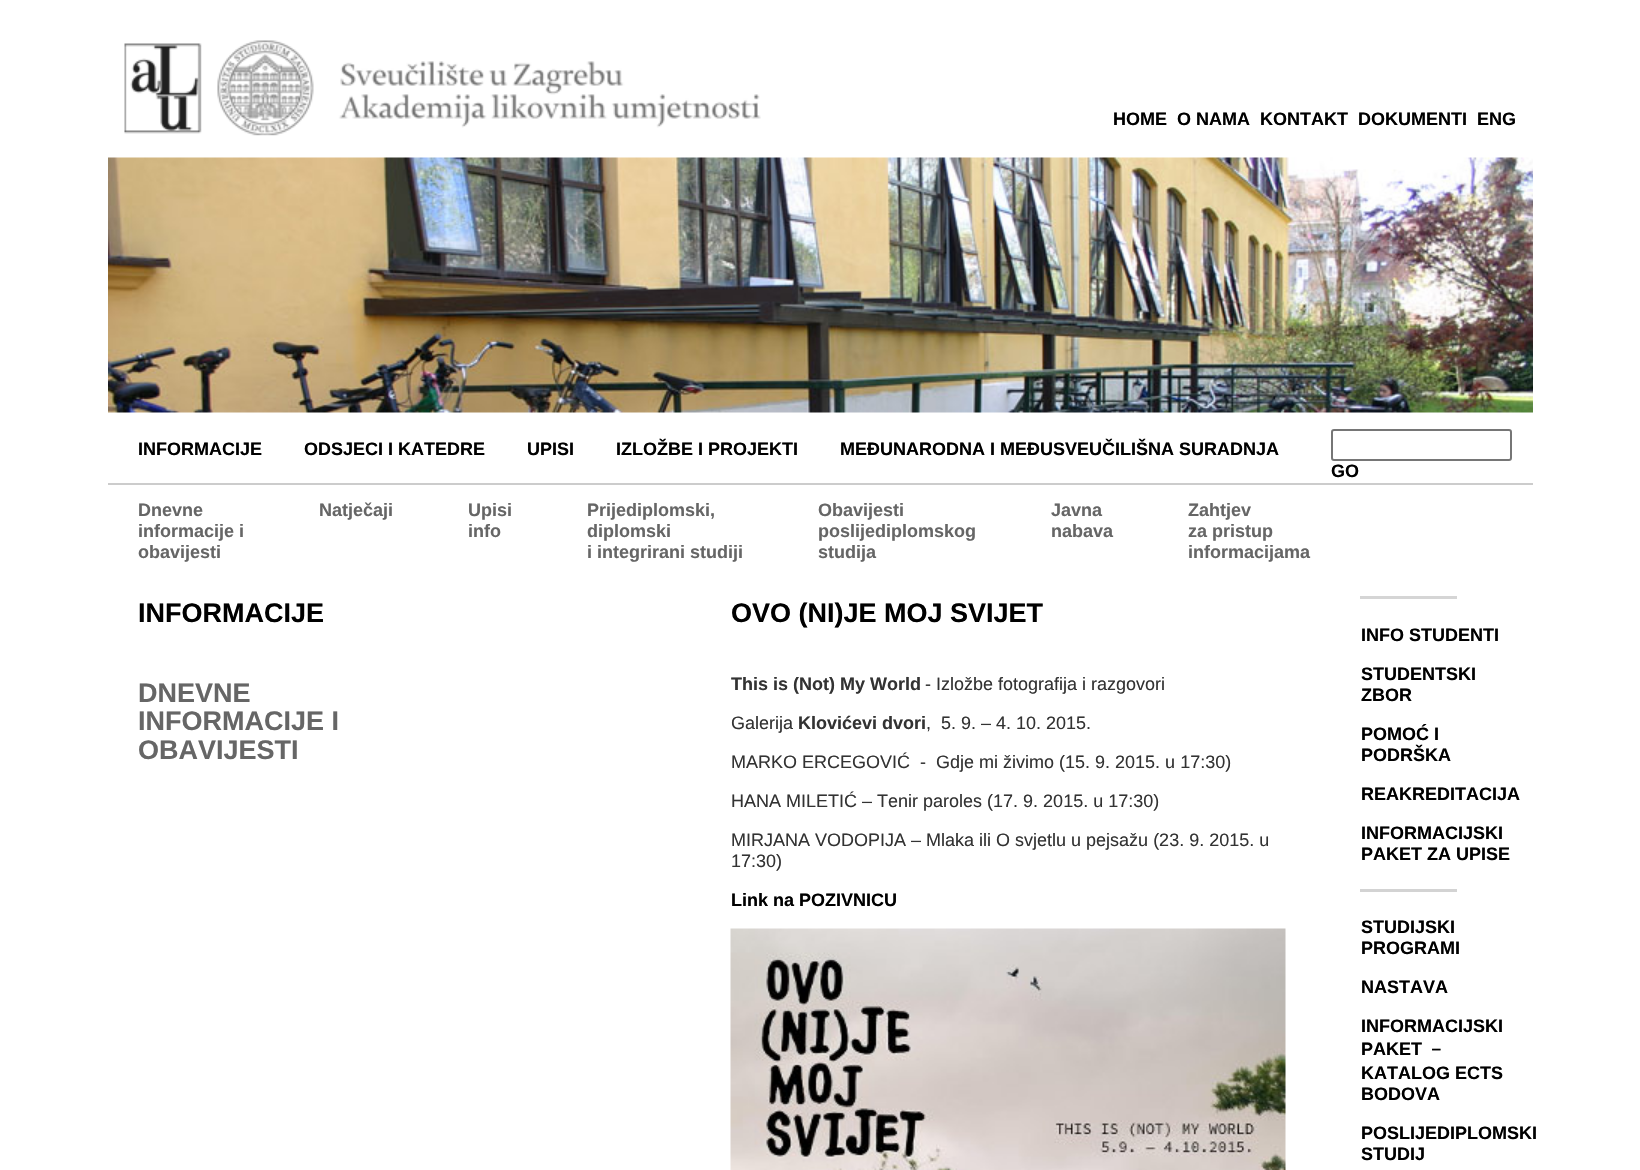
#include "include/core/SkBlurTypes.h"
#include "include/core/SkCanvas.h"
#include "include/core/SkData.h"
#include "include/core/SkFont.h"
#include "include/core/SkFontMgr.h"
#include "include/core/SkImage.h"
#include "include/core/SkMaskFilter.h"
#include "include/core/SkPaint.h"
#include "include/core/SkPathBuilder.h"
#include "include/core/SkTextBlob.h"
#include "include/effects/SkDashPathEffect.h"
#include "include/effects/SkGradientShader.h"
#include "include/utils/SkParsePath.h"

extern sk_sp<SkFontMgr> fontMgr;

static SkFont font(const char* family, int weight, float size, bool italic = false) {
    SkFontStyle style(weight, SkFontStyle::kNormal_Width,
        italic ? SkFontStyle::kItalic_Slant : SkFontStyle::kUpright_Slant);
    SkFont result(fontMgr->matchFamilyStyle(family, style), size);
    result.setSubpixel(true);
    return result;
}

static void drawLabel(SkCanvas* canvas, const char* s, float x, float y, const SkFont& font, SkColor color) {
    SkPaint ink(SkColor4f::FromColor(color));
    ink.setAntiAlias(true);
    canvas->drawString(s, x, y, font, ink);
}

static void fillRect(SkCanvas* canvas, float x, float y, float w, float h, SkColor color) {
    SkPaint ink(SkColor4f::FromColor(color));
    ink.setAntiAlias(true);
    canvas->drawRect(SkRect::MakeXYWH(x, y, w, h), ink);
}

static void drawPhoto(SkCanvas* canvas, const char* path, float x, float y, float w, float h) {
    auto image = SkImages::DeferredFromEncodedData(SkData::MakeFromFileName(path));
    canvas->drawImageRect(image, SkRect::MakeXYWH(x, y, w, h), SkSamplingOptions());
}

void draw(SkCanvas* canvas) {
    SkPaint paint;
    paint.setAntiAlias(true);
    canvas->clear(0xFFFFFFFF);
    drawPhoto(canvas, "assets/img1.png", 124, 40, 637, 96);
    SkFont font1 = font("Liberation Sans", 700, 18);
    drawLabel(canvas, "HOME", 1113, 125, font1, 0xFF000000);
    drawLabel(canvas, "O NAMA", 1177, 125, font1, 0xFF000000);
    drawLabel(canvas, "KONTAKT", 1260, 125, font1, 0xFF000000);
    drawLabel(canvas, "DOKUMENTI", 1358, 125, font1, 0xFF000000);
    drawLabel(canvas, "ENG", 1477, 125, font1, 0xFF000000);
    drawPhoto(canvas, "assets/img2.png", 108, 157, 1425, 256);
    fillRect(canvas, 108, 483, 1425, 2, 0xFFCCCCCC);
    drawLabel(canvas, "INFORMACIJE", 138, 455, font1, 0xFF000000);
    drawLabel(canvas, "ODSJECI I KATEDRE", 304, 455, font1, 0xFF000000);
    drawLabel(canvas, "UPISI", 527, 455, font1, 0xFF000000);
    drawLabel(canvas, "IZLOŽBE I PROJEKTI", 616, 455, font1, 0xFF000000);
    drawLabel(canvas, "MEĐUNARODNA I MEĐUSVEUČILIŠNA SURADNJA", 840, 455, font1, 0xFF000000);
    paint.setStroke(true);
    paint.setStrokeWidth(2);
    paint.setColor(0xFF767676);
    canvas->drawRoundRect(SkRect::MakeXYWH(1332, 430, 179, 30), 2, 2, paint);
    drawLabel(canvas, "GO", 1331, 477, font1, 0xFF000000);
    drawLabel(canvas, "Dnevne", 138, 516, font1, 0xFF666666);
    drawLabel(canvas, "informacije i", 138, 537, font1, 0xFF666666);
    drawLabel(canvas, "obavijesti", 138, 558, font1, 0xFF666666);
    drawLabel(canvas, "Natječaji", 319, 516, font1, 0xFF666666);
    drawLabel(canvas, "Upisi", 468, 516, font1, 0xFF666666);
    drawLabel(canvas, "info", 468, 537, font1, 0xFF666666);
    drawLabel(canvas, "Prijediplomski,", 587, 516, font1, 0xFF666666);
    drawLabel(canvas, "diplomski", 587, 537, font1, 0xFF666666);
    drawLabel(canvas, "i integrirani studiji", 587, 558, font1, 0xFF666666);
    drawLabel(canvas, "Obavijesti", 818, 516, font1, 0xFF666666);
    drawLabel(canvas, "poslijediplomskog", 818, 537, font1, 0xFF666666);
    drawLabel(canvas, "studija", 818, 558, font1, 0xFF666666);
    drawLabel(canvas, "Javna", 1051, 516, font1, 0xFF666666);
    drawLabel(canvas, "nabava", 1051, 537, font1, 0xFF666666);
    drawLabel(canvas, "Zahtjev", 1188, 516, font1, 0xFF666666);
    drawLabel(canvas, "za pristup", 1188, 537, font1, 0xFF666666);
    drawLabel(canvas, "informacijama", 1188, 558, font1, 0xFF666666);
    SkFont font2 = font("Liberation Sans", 700, 27);
    drawLabel(canvas, "INFORMACIJE", 138, 622, font2, 0xFF000000);
    drawLabel(canvas, "DNEVNE", 138, 702, font2, 0xFF666666);
    drawLabel(canvas, "INFORMACIJE I", 138, 730, font2, 0xFF666666);
    drawLabel(canvas, "OBAVIJESTI", 138, 759, font2, 0xFF666666);
    drawLabel(canvas, "OVO (NI)JE MOJ SVIJET", 731, 622, font2, 0xFF000000);
    drawLabel(canvas, "This is (Not) My World", 731, 690, font1, 0xFF333333);
    SkFont font3 = font("Liberation Sans", 400, 18);
    drawLabel(canvas, "- Izložbe fotografija i razgovori", 925, 690, font3, 0xFF333333);
    drawLabel(canvas, "Galerija", 731, 729, font3, 0xFF333333);
    drawLabel(canvas, "Klovićevi dvori", 798, 729, font1, 0xFF333333);
    drawLabel(canvas, ",  5. 9. – 4. 10. 2015.", 926, 729, font3, 0xFF333333);
    drawLabel(canvas, "MARKO ERCEGOVIĆ  -  Gdje mi živimo (15. 9. 2015. u 17:30)", 731, 768, font3, 0xFF333333);
    drawLabel(canvas, "HANA MILETIĆ – Tenir paroles (17. 9. 2015. u 17:30)", 731, 807, font3, 0xFF333333);
    drawLabel(canvas, "MIRJANA VODOPIJA – Mlaka ili O svjetlu u pejsažu (23. 9. 2015. u", 731, 846, font3, 0xFF333333);
    drawLabel(canvas, "17:30)", 731, 867, font3, 0xFF333333);
    drawLabel(canvas, "Link na POZIVNICU", 731, 906, font1, 0xFF000000);
    drawPhoto(canvas, "assets/img3.png", 730, 928, 556, 242);
    fillRect(canvas, 1360, 596, 97, 3, 0xFFD5D5D5);
    drawLabel(canvas, "INFO STUDENTI", 1361, 641, font1, 0xFF000000);
    drawLabel(canvas, "STUDENTSKI", 1361, 680, font1, 0xFF000000);
    drawLabel(canvas, "ZBOR", 1361, 701, font1, 0xFF000000);
    drawLabel(canvas, "POMOĆ I", 1361, 740, font1, 0xFF000000);
    drawLabel(canvas, "PODRŠKA", 1361, 761, font1, 0xFF000000);
    drawLabel(canvas, "REAKREDITACIJA", 1361, 800, font1, 0xFF000000);
    drawLabel(canvas, "INFORMACIJSKI", 1361, 839, font1, 0xFF000000);
    drawLabel(canvas, "PAKET ZA UPISE", 1361, 860, font1, 0xFF000000);
    fillRect(canvas, 1360, 889, 97, 3, 0xFFD3D3D3);
    drawLabel(canvas, "STUDIJSKI", 1361, 933, font1, 0xFF000000);
    drawLabel(canvas, "PROGRAMI", 1361, 954, font1, 0xFF000000);
    drawLabel(canvas, "NASTAVA", 1361, 993, font1, 0xFF000000);
    drawLabel(canvas, "INFORMACIJSKI", 1361, 1032, font1, 0xFF000000);
    drawLabel(canvas, "PAKET", 1361, 1055, font1, 0xFF000000);
    SkFont font4 = font("WenQuanYi Zen Hei", 700, 18);
    drawLabel(canvas, "－", 1427, 1055, font4, 0xFF000000);
    drawLabel(canvas, "KATALOG ECTS", 1361, 1079, font1, 0xFF000000);
    drawLabel(canvas, "BODOVA", 1361, 1100, font1, 0xFF000000);
    drawLabel(canvas, "POSLIJEDIPLOMSKI", 1361, 1139, font1, 0xFF000000);
    drawLabel(canvas, "STUDIJ", 1361, 1160, font1, 0xFF000000);
}
